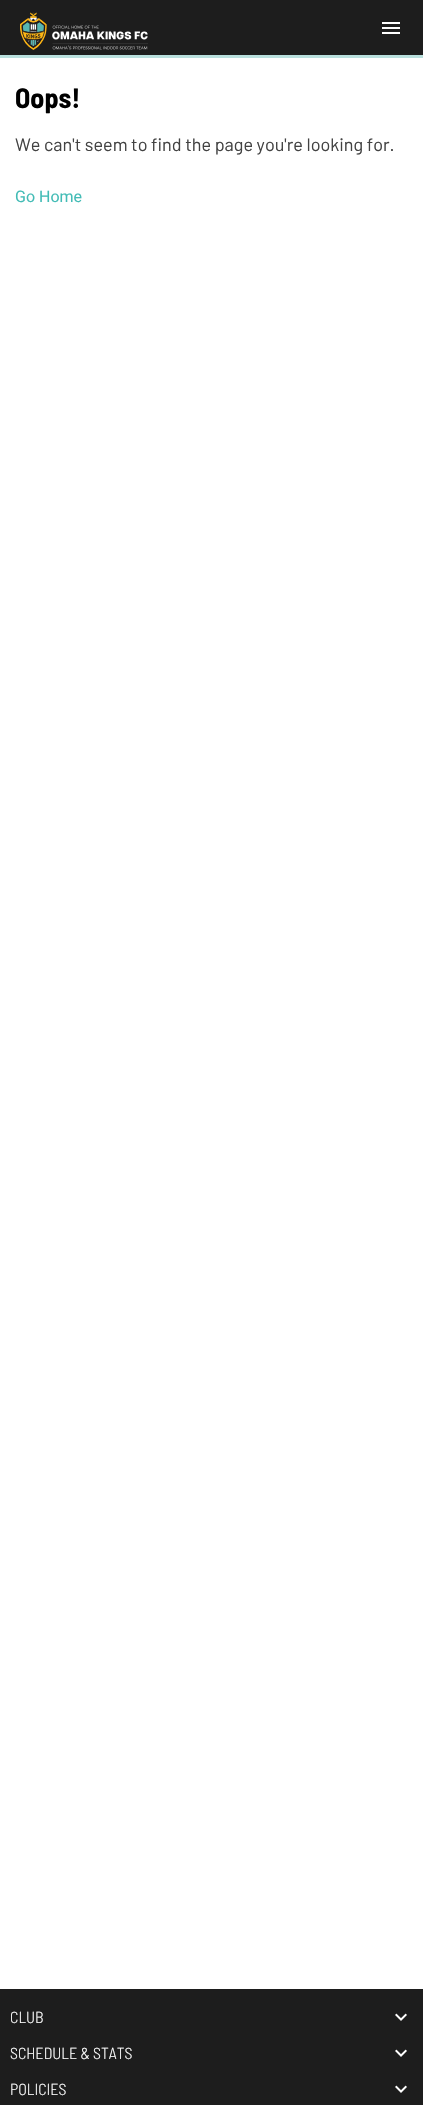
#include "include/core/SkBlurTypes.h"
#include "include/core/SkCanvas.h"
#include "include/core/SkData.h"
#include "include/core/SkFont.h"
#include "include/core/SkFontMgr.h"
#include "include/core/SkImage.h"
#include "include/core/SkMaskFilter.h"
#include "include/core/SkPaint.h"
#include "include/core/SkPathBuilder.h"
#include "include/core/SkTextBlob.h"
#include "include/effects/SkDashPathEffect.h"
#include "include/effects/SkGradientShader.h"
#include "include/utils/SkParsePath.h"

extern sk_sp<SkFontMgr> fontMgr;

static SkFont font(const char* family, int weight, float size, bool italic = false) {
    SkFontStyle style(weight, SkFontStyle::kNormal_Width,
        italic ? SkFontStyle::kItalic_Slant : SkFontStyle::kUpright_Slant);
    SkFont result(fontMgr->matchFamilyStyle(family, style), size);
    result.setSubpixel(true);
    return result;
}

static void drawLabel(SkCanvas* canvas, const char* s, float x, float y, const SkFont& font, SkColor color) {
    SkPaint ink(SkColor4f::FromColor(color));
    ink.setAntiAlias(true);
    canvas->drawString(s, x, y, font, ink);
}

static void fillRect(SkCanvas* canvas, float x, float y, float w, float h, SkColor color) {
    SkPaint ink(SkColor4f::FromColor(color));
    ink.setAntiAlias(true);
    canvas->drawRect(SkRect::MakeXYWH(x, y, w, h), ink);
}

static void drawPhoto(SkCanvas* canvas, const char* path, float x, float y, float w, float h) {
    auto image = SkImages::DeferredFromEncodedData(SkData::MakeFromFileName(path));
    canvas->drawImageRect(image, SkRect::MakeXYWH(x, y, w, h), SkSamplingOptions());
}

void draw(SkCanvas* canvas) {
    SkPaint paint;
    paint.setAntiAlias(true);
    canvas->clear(0xFFFFFFFF);
    fillRect(canvas, 0, 0, 423, 55, 0xFF1D1D1D);
    drawPhoto(canvas, "assets/img1.png", 20, 12, 128, 38);
    drawPhoto(canvas, "assets/img2.png", 382, 22, 18, 12);
    fillRect(canvas, 0, 55, 423, 3, 0xFFB9E0DD);
    SkFont font1 = font("Barlow Semi Condensed", 700, 28);
    drawLabel(canvas, "Oops!", 15, 108, font1, 0xFF000000);
    SkFont font2 = font("Barlow", 400, 18);
    drawLabel(canvas, "We can't seem to find the page you're looking for.", 15, 151, font2, 0xFF424242);
    SkFont font3 = font("Roboto", 400, 16);
    drawLabel(canvas, "Go Home", 15, 202, font3, 0xFF43BCB6);
    fillRect(canvas, 0, 1989, 423, 116, 0xFF1D1D1D);
    SkFont font4 = font("Barlow Semi Condensed", 300, 16);
    drawLabel(canvas, "CLUB", 10, 2023, font4, 0xFFFFFFFF);
    drawPhoto(canvas, "assets/img3.png", 395, 2013, 12, 8);
    drawLabel(canvas, "SCHEDULE & STATS", 10, 2059, font4, 0xFFFFFFFF);
    drawPhoto(canvas, "assets/img3.png", 395, 2049, 12, 8);
    drawLabel(canvas, "POLICIES", 10, 2095, font4, 0xFFFFFFFF);
    drawPhoto(canvas, "assets/img3.png", 395, 2085, 12, 8);
}
